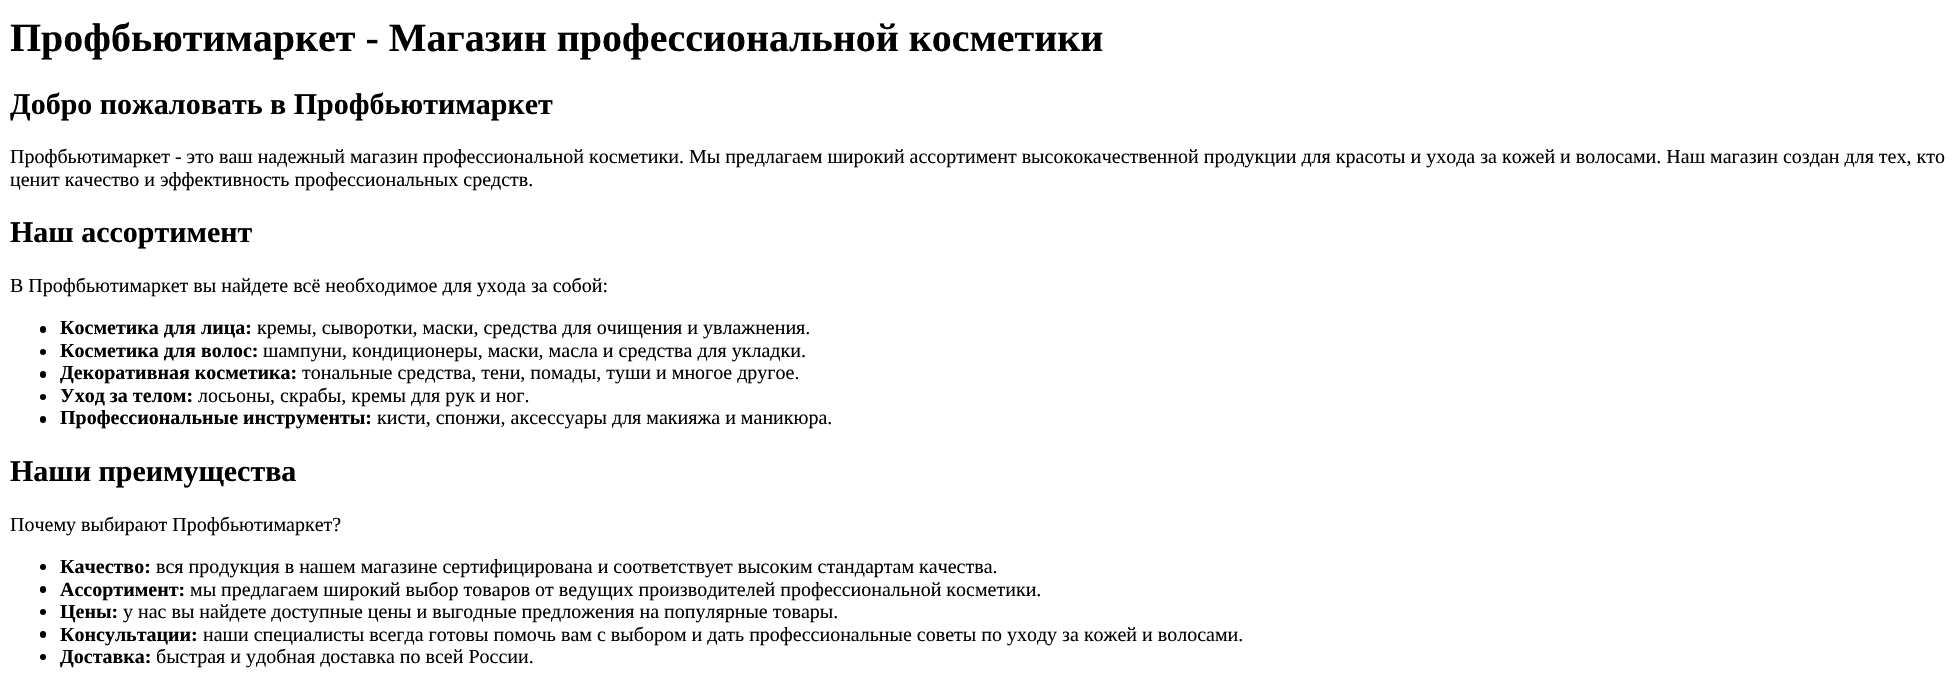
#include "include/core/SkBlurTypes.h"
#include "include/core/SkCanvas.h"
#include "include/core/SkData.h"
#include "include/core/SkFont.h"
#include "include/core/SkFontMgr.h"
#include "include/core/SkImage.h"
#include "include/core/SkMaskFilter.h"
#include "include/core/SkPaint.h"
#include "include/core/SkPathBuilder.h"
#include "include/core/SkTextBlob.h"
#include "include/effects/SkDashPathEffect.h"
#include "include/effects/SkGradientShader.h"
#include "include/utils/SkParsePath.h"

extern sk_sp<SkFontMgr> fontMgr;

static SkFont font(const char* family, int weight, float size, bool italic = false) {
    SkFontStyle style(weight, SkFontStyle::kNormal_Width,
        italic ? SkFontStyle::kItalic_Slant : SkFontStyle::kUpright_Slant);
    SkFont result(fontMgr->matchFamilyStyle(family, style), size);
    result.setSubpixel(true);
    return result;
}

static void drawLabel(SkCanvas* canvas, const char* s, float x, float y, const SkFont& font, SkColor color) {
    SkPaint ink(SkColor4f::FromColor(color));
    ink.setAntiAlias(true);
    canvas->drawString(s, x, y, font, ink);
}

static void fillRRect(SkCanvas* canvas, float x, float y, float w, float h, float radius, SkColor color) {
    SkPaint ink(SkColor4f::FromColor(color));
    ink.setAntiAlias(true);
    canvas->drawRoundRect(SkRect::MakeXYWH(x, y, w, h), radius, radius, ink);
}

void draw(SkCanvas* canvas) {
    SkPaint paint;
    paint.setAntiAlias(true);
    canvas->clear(0xFFFFFFFF);
    SkFont font1 = font("Liberation Serif", 700, 40);
    drawLabel(canvas, "Профбьютимаркет - Магазин профессиональной косметики", 10, 51, font1, 0xFF000000);
    SkFont font2 = font("Liberation Serif", 700, 30);
    drawLabel(canvas, "Добро пожаловать в Профбьютимаркет", 10, 114, font2, 0xFF000000);
    SkFont font3 = font("Liberation Serif", 400, 20);
    drawLabel(canvas, "Профбьютимаркет - это ваш надежный магазин профессиональной косметики. Мы предлагаем широкий ассортимент высококачественной продукции для красоты и ухода за кожей и волосами. Наш магазин создан для тех, кто", 10, 163, font3, 0xFF000000);
    drawLabel(canvas, "ценит качество и эффективность профессиональных средств.", 10, 186, font3, 0xFF000000);
    drawLabel(canvas, "Наш ассортимент", 10, 242, font2, 0xFF000000);
    drawLabel(canvas, "В Профбьютимаркет вы найдете всё необходимое для ухода за собой:", 10, 292, font3, 0xFF000000);
    fillRRect(canvas, 40, 326, 6, 7, 3, 0xFF000000);
    SkFont font4 = font("Liberation Serif", 700, 20);
    drawLabel(canvas, "Косметика для лица:", 60, 334, font4, 0xFF000000);
    drawLabel(canvas, "кремы, сыворотки, маски, средства для очищения и увлажнения.", 257, 334, font3, 0xFF000000);
    paint.setColor(0xFF000000);
    canvas->drawCircle(43, 352, 3, paint);
    drawLabel(canvas, "Косметика для волос:", 60, 357, font4, 0xFF000000);
    drawLabel(canvas, "шампуни, кондиционеры, маски, масла и средства для укладки.", 263, 357, font3, 0xFF000000);
    fillRRect(canvas, 40, 371, 6, 7, 3, 0xFF000000);
    drawLabel(canvas, "Декоративная косметика:", 60, 379, font4, 0xFF000000);
    drawLabel(canvas, "тональные средства, тени, помады, туши и многое другое.", 302, 379, font3, 0xFF000000);
    canvas->drawCircle(43, 397, 3, paint);
    drawLabel(canvas, "Уход за телом:", 60, 402, font4, 0xFF000000);
    drawLabel(canvas, "лосьоны, скрабы, кремы для рук и ног.", 198, 402, font3, 0xFF000000);
    fillRRect(canvas, 40, 416, 6, 7, 3, 0xFF000000);
    drawLabel(canvas, "Профессиональные инструменты:", 60, 424, font4, 0xFF000000);
    drawLabel(canvas, "кисти, спонжи, аксессуары для макияжа и маникюра.", 377, 424, font3, 0xFF000000);
    drawLabel(canvas, "Наши преимущества", 10, 481, font2, 0xFF000000);
    drawLabel(canvas, "Почему выбирают Профбьютимаркет?", 10, 531, font3, 0xFF000000);
    canvas->drawCircle(43, 567, 3, paint);
    drawLabel(canvas, "Качество:", 60, 573, font4, 0xFF000000);
    drawLabel(canvas, "вся продукция в нашем магазине сертифицирована и соответствует высоким стандартам качества.", 156, 573, font3, 0xFF000000);
    fillRRect(canvas, 40, 586, 6, 7, 3, 0xFF000000);
    drawLabel(canvas, "Ассортимент:", 60, 596, font4, 0xFF000000);
    drawLabel(canvas, "мы предлагаем широкий выбор товаров от ведущих производителей профессиональной косметики.", 190, 596, font3, 0xFF000000);
    canvas->drawCircle(43, 612, 3, paint);
    drawLabel(canvas, "Цены:", 60, 618, font4, 0xFF000000);
    drawLabel(canvas, "у нас вы найдете доступные цены и выгодные предложения на популярные товары.", 123, 618, font3, 0xFF000000);
    fillRRect(canvas, 40, 631, 6, 7, 3, 0xFF000000);
    drawLabel(canvas, "Консультации:", 60, 641, font4, 0xFF000000);
    drawLabel(canvas, "наши специалисты всегда готовы помочь вам с выбором и дать профессиональные советы по уходу за кожей и волосами.", 203, 641, font3, 0xFF000000);
    canvas->drawCircle(43, 657, 3, paint);
    drawLabel(canvas, "Доставка:", 60, 663, font4, 0xFF000000);
    drawLabel(canvas, "быстрая и удобная доставка по всей России.", 156, 663, font3, 0xFF000000);
}
